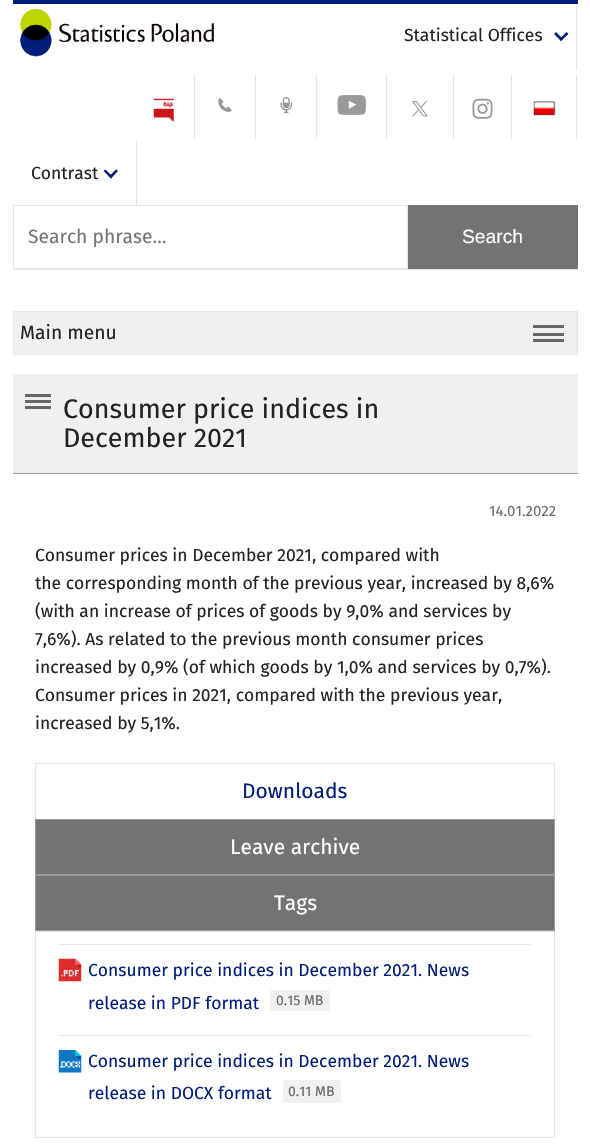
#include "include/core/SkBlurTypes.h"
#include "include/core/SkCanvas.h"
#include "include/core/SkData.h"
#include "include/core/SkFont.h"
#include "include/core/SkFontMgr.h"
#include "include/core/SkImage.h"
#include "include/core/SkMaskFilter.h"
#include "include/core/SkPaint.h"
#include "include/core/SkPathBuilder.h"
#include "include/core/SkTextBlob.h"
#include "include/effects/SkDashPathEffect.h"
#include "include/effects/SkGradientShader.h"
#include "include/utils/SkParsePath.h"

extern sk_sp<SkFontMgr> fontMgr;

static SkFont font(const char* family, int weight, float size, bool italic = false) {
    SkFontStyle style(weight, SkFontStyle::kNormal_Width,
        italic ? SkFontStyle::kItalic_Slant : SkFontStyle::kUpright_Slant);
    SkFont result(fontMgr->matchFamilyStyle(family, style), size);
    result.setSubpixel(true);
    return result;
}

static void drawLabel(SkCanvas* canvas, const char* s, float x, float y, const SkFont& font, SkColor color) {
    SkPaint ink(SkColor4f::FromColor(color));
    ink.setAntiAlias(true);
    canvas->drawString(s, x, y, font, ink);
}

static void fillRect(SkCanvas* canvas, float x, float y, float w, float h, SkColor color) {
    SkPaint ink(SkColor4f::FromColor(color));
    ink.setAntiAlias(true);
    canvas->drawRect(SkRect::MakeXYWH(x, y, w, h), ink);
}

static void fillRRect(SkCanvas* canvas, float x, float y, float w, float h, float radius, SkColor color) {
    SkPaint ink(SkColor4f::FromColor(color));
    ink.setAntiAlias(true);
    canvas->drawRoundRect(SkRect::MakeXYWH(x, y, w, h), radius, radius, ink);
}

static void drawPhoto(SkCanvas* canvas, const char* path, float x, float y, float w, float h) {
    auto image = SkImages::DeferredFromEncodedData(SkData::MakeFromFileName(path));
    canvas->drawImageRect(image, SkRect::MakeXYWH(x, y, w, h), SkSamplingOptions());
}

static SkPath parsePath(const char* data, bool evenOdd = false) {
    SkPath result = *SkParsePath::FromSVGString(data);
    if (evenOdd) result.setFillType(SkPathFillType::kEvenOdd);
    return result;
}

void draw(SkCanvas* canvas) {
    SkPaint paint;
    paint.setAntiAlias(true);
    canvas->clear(0xFFFFFFFF);
    fillRect(canvas, 13, 0, 565, 4, 0xFF001D77);
    fillRect(canvas, 13, 269, 565, 1, 0xFFE5E5E5);
    drawPhoto(canvas, "assets/img1.png", 20, 9, 194, 48);
    fillRect(canvas, 576, 6, 1, 64, 0xFFE5E5E5);
    SkFont font1 = font("Fira Sans", 400, 17.5f);
    drawLabel(canvas, "Statistical Offices", 404, 41, font1, 0xFF222222);
    paint.setColor(0xFF001D77);
    canvas->drawPath(parsePath("M566.5 32L568.5 34L561 41L559.5 39Z"), paint);
    canvas->drawPath(parsePath("M556 32L563 39L561 41L554 34Z"), paint);
    fillRect(canvas, 194, 75, 1, 64, 0xFFE5E5E5);
    drawPhoto(canvas, "assets/img2.png", 153, 98, 21, 24);
    fillRect(canvas, 255, 75, 1, 64, 0xFFE5E5E5);
    drawPhoto(canvas, "assets/img3.png", 218, 98, 14, 14);
    fillRect(canvas, 316, 75, 1, 64, 0xFFE5E5E5);
    drawPhoto(canvas, "assets/img4.png", 280, 97, 13, 17);
    fillRect(canvas, 386, 75, 1, 64, 0xFFE5E5E5);
    drawPhoto(canvas, "assets/img5.png", 337, 95, 29, 20);
    fillRect(canvas, 453, 75, 1, 64, 0xFFE5E5E5);
    drawPhoto(canvas, "assets/img6.png", 412, 101, 16, 16);
    fillRect(canvas, 511, 75, 1, 64, 0xFFE5E5E5);
    drawPhoto(canvas, "assets/img7.png", 472, 98, 21, 21);
    fillRect(canvas, 576, 75, 1, 64, 0xFFE5E5E5);
    drawPhoto(canvas, "assets/img8.png", 533, 101, 23, 15);
    fillRect(canvas, 136, 141, 1, 64, 0xFFE5E5E5);
    drawLabel(canvas, "Contrast", 31, 179, font1, 0xFF222222);
    canvas->drawPath(parsePath("M116 169.5L118 171L111 178.5L109 176.5Z"), paint);
    canvas->drawPath(parsePath("M105.5 169.5L112.5 176.5L111 178.5L103.5 171Z"), paint);
    paint.setStroke(true);
    paint.setStrokeWidth(1);
    paint.setColor(0xFFE5E5E5);
    canvas->drawRect(SkRect::MakeXYWH(13.5f, 205.5f, 394, 63), paint);
    SkFont font2 = font("Fira Sans", 400, 19.25f);
    drawLabel(canvas, "Search phrase...", 28, 243, font2, 0xFF757575);
    fillRect(canvas, 408, 205, 170, 64, 0xFF737373);
    SkFont font3 = font("Liberation Sans", 400, 19.25f);
    drawLabel(canvas, "Search", 462, 243, font3, 0xFFFFFFFF);
    paint.setStroke(false);
    paint.setColor(0xFFF0F0F0);
    canvas->drawRect(SkRect::MakeXYWH(13.5f, 311.5f, 564, 43), paint);
    paint.setStroke(true);
    paint.setColor(0xFFE5E5E5);
    canvas->drawRect(SkRect::MakeXYWH(13.5f, 311.5f, 564, 43), paint);
    drawLabel(canvas, "Main menu", 20, 339, font2, 0xFF222222);
    fillRect(canvas, 533, 339, 31, 3, 0xFF666666);
    fillRect(canvas, 533, 333, 31, 3, 0xFF666666);
    fillRect(canvas, 533, 325, 31, 3, 0xFF666666);
    fillRect(canvas, 13, 374, 565, 99, 0xFFF0F0F0);
    fillRect(canvas, 13, 473, 565, 1, 0xFF9A9A9A);
    fillRect(canvas, 25, 406, 26, 3, 0xFF666666);
    fillRect(canvas, 25, 400, 26, 3, 0xFF666666);
    fillRect(canvas, 25, 394, 26, 3, 0xFF666666);
    SkFont font4 = font("Fira Sans", 400, 26.9f);
    drawLabel(canvas, "Consumer price indices in", 63, 418, font4, 0xFF222222);
    drawLabel(canvas, "December 2021", 63, 447, font4, 0xFF222222);
    SkFont font5 = font("Fira Sans", 400, 15);
    drawLabel(canvas, "14.01.2022", 489, 516, font5, 0xFF6E6E6E);
    drawLabel(canvas, "Consumer prices in December 2021, compared with", 35, 561, font1, 0xFF222222);
    drawLabel(canvas, "the corresponding month of the previous year, increased by 8,6%", 35, 589, font1, 0xFF222222);
    drawLabel(canvas, "(with an increase of prices of goods by 9,0% and services by", 35, 617, font1, 0xFF222222);
    drawLabel(canvas, "7,6%). As related to the previous month consumer prices", 35, 645, font1, 0xFF222222);
    drawLabel(canvas, "increased by 0,9% (of which goods by 1,0% and services by 0,7%).", 35, 673, font1, 0xFF222222);
    drawLabel(canvas, "Consumer prices in 2021, compared with the previous year,", 35, 701, font1, 0xFF222222);
    drawLabel(canvas, "increased by 5,1%.", 35, 729, font1, 0xFF222222);
    fillRect(canvas, 35, 763, 520, 1, 0xFFE5E5E5);
    fillRect(canvas, 554, 763, 1, 56, 0xFFE5E5E5);
    fillRect(canvas, 554, 818, 1, 1, 0xFFFFFFFF);
    fillRect(canvas, 35, 763, 1, 56, 0xFFE5E5E5);
    SkFont font6 = font("Fira Sans", 400, 21);
    drawLabel(canvas, "Downloads", 242, 798, font6, 0xFF001D77);
    paint.setStroke(false);
    paint.setColor(0xFF737373);
    canvas->drawRect(SkRect::MakeXYWH(35.5f, 819.5f, 519, 55), paint);
    paint.setStroke(true);
    paint.setColor(0xFF9A9A9A);
    canvas->drawRect(SkRect::MakeXYWH(35.5f, 819.5f, 519, 55), paint);
    drawLabel(canvas, "Leave archive", 230, 854, font6, 0xFFFFFFFF);
    paint.setStroke(false);
    paint.setColor(0xFF737373);
    canvas->drawRect(SkRect::MakeXYWH(35.5f, 875.5f, 519, 55), paint);
    paint.setStroke(true);
    paint.setColor(0xFF9A9A9A);
    canvas->drawRect(SkRect::MakeXYWH(35.5f, 875.5f, 519, 55), paint);
    drawLabel(canvas, "Tags", 274, 910, font6, 0xFFFFFFFF);
    paint.setColor(0xFFE5E5E5);
    canvas->drawRect(SkRect::MakeXYWH(35.5f, 931.5f, 519, 206), paint);
    fillRect(canvas, 59, 944, 472, 1, 0xFFE5E5E5);
    drawPhoto(canvas, "assets/img9.png", 58, 958, 24, 24);
    drawLabel(canvas, "Consumer price indices in December 2021. News", 88, 976, font1, 0xFF001D77);
    drawLabel(canvas, "release in PDF format", 88, 1009, font1, 0xFF001D77);
    fillRRect(canvas, 270, 990, 60, 21, 2.5f, 0xFFF0F0F0);
    SkFont font7 = font("Fira Sans", 400, 14);
    drawLabel(canvas, "0.15 MB", 276, 1005, font7, 0xFF666666);
    fillRect(canvas, 59, 1035, 472, 1, 0xFFE5E5E5);
    drawPhoto(canvas, "assets/img10.png", 58, 1050, 24, 23);
    drawLabel(canvas, "Consumer price indices in December 2021. News", 88, 1067, font1, 0xFF001D77);
    drawLabel(canvas, "release in DOCX format", 88, 1099, font1, 0xFF001D77);
    fillRRect(canvas, 283, 1080, 58, 23, 2.5f, 0xFFF0F0F0);
    drawLabel(canvas, "0.11 MB", 288, 1096, font7, 0xFF666666);
}
